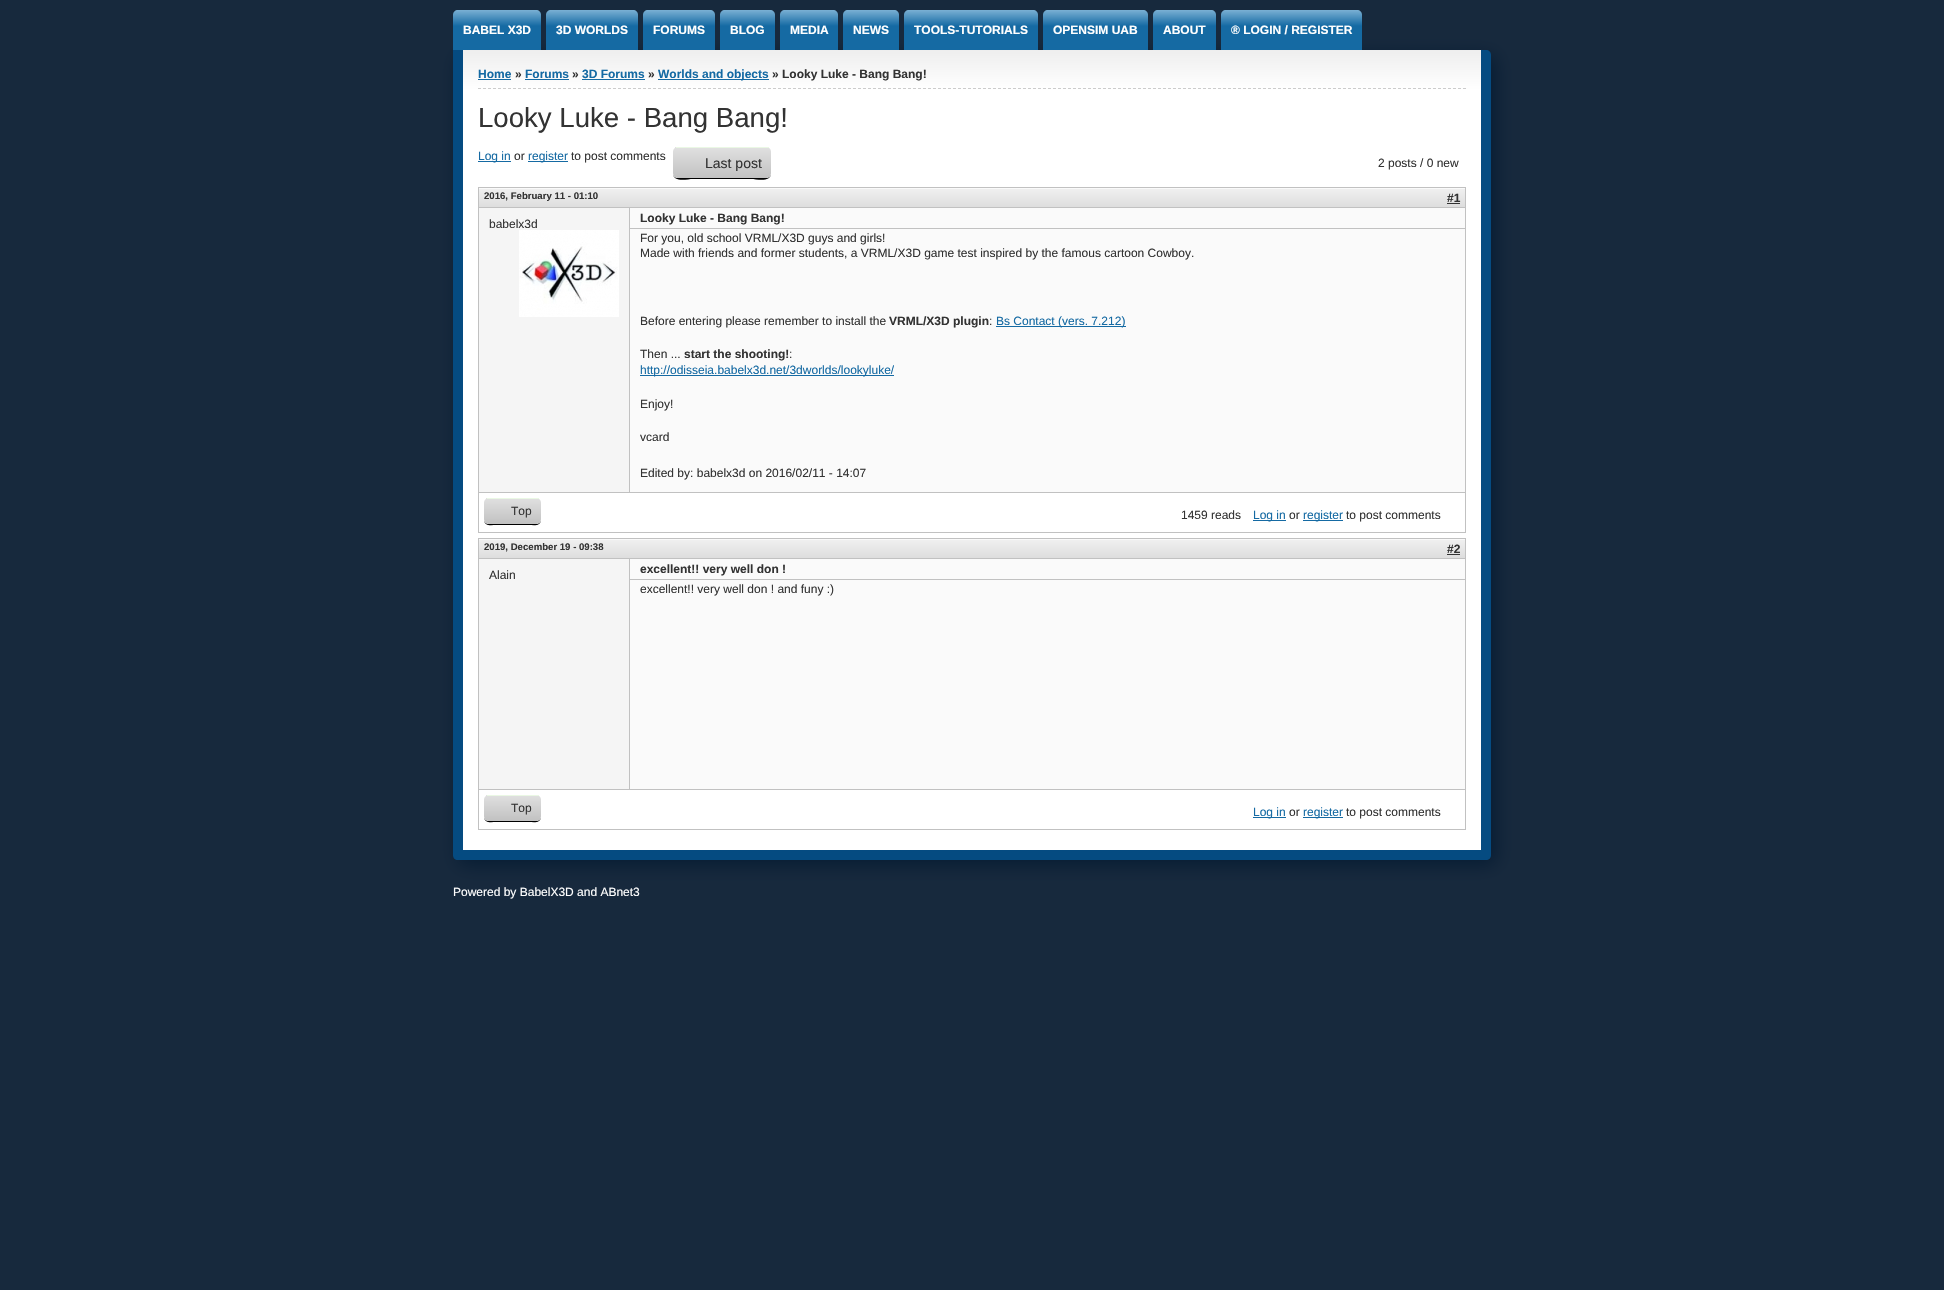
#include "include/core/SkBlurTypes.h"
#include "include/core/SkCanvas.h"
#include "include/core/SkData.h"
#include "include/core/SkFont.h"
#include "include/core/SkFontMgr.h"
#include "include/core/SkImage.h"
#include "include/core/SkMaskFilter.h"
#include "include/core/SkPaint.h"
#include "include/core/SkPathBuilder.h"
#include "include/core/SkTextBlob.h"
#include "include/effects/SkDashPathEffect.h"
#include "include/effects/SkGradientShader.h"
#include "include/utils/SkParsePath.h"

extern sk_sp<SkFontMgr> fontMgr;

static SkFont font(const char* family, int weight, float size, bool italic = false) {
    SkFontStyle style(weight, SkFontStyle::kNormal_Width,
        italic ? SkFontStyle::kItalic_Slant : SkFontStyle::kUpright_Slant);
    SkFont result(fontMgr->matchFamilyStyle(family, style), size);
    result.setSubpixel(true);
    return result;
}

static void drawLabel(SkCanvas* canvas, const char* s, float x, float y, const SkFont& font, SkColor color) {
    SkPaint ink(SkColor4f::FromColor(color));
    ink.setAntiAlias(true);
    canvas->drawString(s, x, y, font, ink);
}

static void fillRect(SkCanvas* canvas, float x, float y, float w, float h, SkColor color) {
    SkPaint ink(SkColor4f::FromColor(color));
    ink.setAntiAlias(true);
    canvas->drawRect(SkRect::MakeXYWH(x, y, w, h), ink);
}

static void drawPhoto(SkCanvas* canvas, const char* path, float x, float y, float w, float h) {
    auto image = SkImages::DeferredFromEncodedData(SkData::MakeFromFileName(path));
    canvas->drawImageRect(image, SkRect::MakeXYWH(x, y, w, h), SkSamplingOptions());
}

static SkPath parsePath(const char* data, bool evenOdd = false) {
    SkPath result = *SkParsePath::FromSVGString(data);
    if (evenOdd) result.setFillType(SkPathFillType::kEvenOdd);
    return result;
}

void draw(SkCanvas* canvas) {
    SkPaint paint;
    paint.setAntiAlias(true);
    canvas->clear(0xFF17293D);
    paint.setColor(0xFF051B32);
    paint.setMaskFilter(SkMaskFilter::MakeBlur(kNormal_SkBlurStyle, 10));
    canvas->drawRoundRect(SkRect::MakeXYWH(458, 55, 1038, 810), 5, 5, paint);
    paint.setMaskFilter(nullptr);
    {
        const SkColor colors[] = {0xFF7AB0D4, 0xFF156AA3};
        const float stops[] = {0, 0.4f};
        const SkPoint ends[] = {{453, 10}, {453, 50}};
        paint.setShader(SkGradientShader::MakeLinear(ends, colors, stops, 2, SkTileMode::kClamp));
        paint.setAlpha(255);
    }
    canvas->drawPath(parsePath("M458 10H536C539 10 541 12 541 15V50H453V15C453 12 455 10 458 10Z"), paint);
    SkFont font1 = font("Liberation Sans", 700, 12);
    drawLabel(canvas, "BABEL X3D", 463, 34, font1, 0xFFFFFFFF);
    {
        const SkColor colors[] = {0xFF7AB0D4, 0xFF156AA3};
        const float stops[] = {0, 0.4f};
        const SkPoint ends[] = {{546, 10}, {546, 50}};
        paint.setShader(SkGradientShader::MakeLinear(ends, colors, stops, 2, SkTileMode::kClamp));
        paint.setAlpha(255);
    }
    canvas->drawPath(parsePath("M551 10H633C636 10 638 12 638 15V50H546V15C546 12 548 10 551 10Z"), paint);
    drawLabel(canvas, "3D WORLDS", 556, 34, font1, 0xFFFFFFFF);
    {
        const SkColor colors[] = {0xFF7AB0D4, 0xFF156AA3};
        const float stops[] = {0, 0.4f};
        const SkPoint ends[] = {{643, 10}, {643, 50}};
        paint.setShader(SkGradientShader::MakeLinear(ends, colors, stops, 2, SkTileMode::kClamp));
        paint.setAlpha(255);
    }
    canvas->drawPath(parsePath("M648 10H710C713 10 715 12 715 15V50H643V15C643 12 645 10 648 10Z"), paint);
    drawLabel(canvas, "FORUMS", 653, 34, font1, 0xFFFFFFFF);
    {
        const SkColor colors[] = {0xFF7AB0D4, 0xFF156AA3};
        const float stops[] = {0, 0.4f};
        const SkPoint ends[] = {{720, 10}, {720, 50}};
        paint.setShader(SkGradientShader::MakeLinear(ends, colors, stops, 2, SkTileMode::kClamp));
        paint.setAlpha(255);
    }
    canvas->drawPath(parsePath("M725 10H770C773 10 775 12 775 15V50H720V15C720 12 722 10 725 10Z"), paint);
    drawLabel(canvas, "BLOG", 730, 34, font1, 0xFFFFFFFF);
    {
        const SkColor colors[] = {0xFF7AB0D4, 0xFF156AA3};
        const float stops[] = {0, 0.4f};
        const SkPoint ends[] = {{780, 10}, {780, 50}};
        paint.setShader(SkGradientShader::MakeLinear(ends, colors, stops, 2, SkTileMode::kClamp));
        paint.setAlpha(255);
    }
    canvas->drawPath(parsePath("M785 10H833C836 10 838 12 838 15V50H780V15C780 12 782 10 785 10Z"), paint);
    drawLabel(canvas, "MEDIA", 790, 34, font1, 0xFFFFFFFF);
    {
        const SkColor colors[] = {0xFF7AB0D4, 0xFF156AA3};
        const float stops[] = {0, 0.4f};
        const SkPoint ends[] = {{843, 10}, {843, 50}};
        paint.setShader(SkGradientShader::MakeLinear(ends, colors, stops, 2, SkTileMode::kClamp));
        paint.setAlpha(255);
    }
    canvas->drawPath(parsePath("M848 10H894C897 10 899 12 899 15V50H843V15C843 12 845 10 848 10Z"), paint);
    drawLabel(canvas, "NEWS", 853, 34, font1, 0xFFFFFFFF);
    {
        const SkColor colors[] = {0xFF7AB0D4, 0xFF156AA3};
        const float stops[] = {0, 0.4f};
        const SkPoint ends[] = {{904, 10}, {904, 50}};
        paint.setShader(SkGradientShader::MakeLinear(ends, colors, stops, 2, SkTileMode::kClamp));
        paint.setAlpha(255);
    }
    canvas->drawPath(parsePath("M909 10H1033C1036 10 1038 12 1038 15V50H904V15C904 12 906 10 909 10Z"), paint);
    drawLabel(canvas, "TOOLS-TUTORIALS", 914, 34, font1, 0xFFFFFFFF);
    {
        const SkColor colors[] = {0xFF7AB0D4, 0xFF156AA3};
        const float stops[] = {0, 0.4f};
        const SkPoint ends[] = {{1043, 10}, {1043, 50}};
        paint.setShader(SkGradientShader::MakeLinear(ends, colors, stops, 2, SkTileMode::kClamp));
        paint.setAlpha(255);
    }
    canvas->drawPath(parsePath("M1048 10H1143C1146 10 1148 12 1148 15V50H1043V15C1043 12 1045 10 1048 10Z"), paint);
    drawLabel(canvas, "OPENSIM UAB", 1053, 34, font1, 0xFFFFFFFF);
    {
        const SkColor colors[] = {0xFF7AB0D4, 0xFF156AA3};
        const float stops[] = {0, 0.4f};
        const SkPoint ends[] = {{1153, 10}, {1153, 50}};
        paint.setShader(SkGradientShader::MakeLinear(ends, colors, stops, 2, SkTileMode::kClamp));
        paint.setAlpha(255);
    }
    canvas->drawPath(parsePath("M1158 10H1211C1214 10 1216 12 1216 15V50H1153V15C1153 12 1155 10 1158 10Z"), paint);
    drawLabel(canvas, "ABOUT", 1163, 34, font1, 0xFFFFFFFF);
    {
        const SkColor colors[] = {0xFF7AB0D4, 0xFF156AA3};
        const float stops[] = {0, 0.4f};
        const SkPoint ends[] = {{1221, 10}, {1221, 50}};
        paint.setShader(SkGradientShader::MakeLinear(ends, colors, stops, 2, SkTileMode::kClamp));
        paint.setAlpha(255);
    }
    canvas->drawPath(parsePath("M1226 10H1357C1360 10 1362 12 1362 15V50H1221V15C1221 12 1223 10 1226 10Z"), paint);
    drawLabel(canvas, "® LOGIN / REGISTER", 1231, 34, font1, 0xFFFFFFFF);
    paint.setShader(nullptr);
    paint.setColor(0xFF054B81);
    canvas->drawPath(parsePath("M453 50H1486C1489 50 1491 52 1491 55V855C1491 858 1489 860 1486 860H458C455 860 453 858 453 855ZM463 50H1481V850H463Z", true), paint);
    {
        const SkColor colors[] = {0xFFEEEEEE, 0xFFFFFFFF};
        const float stops[] = {0, 0.05f};
        const SkPoint ends[] = {{463, 50}, {463, 850}};
        paint.setShader(SkGradientShader::MakeLinear(ends, colors, stops, 2, SkTileMode::kClamp));
        paint.setAlpha(255);
    }
    canvas->drawRect(SkRect::MakeXYWH(463, 50, 1018, 800), paint);
    paint.setStroke(true);
    paint.setStrokeWidth(1);
    paint.setShader(nullptr);
    paint.setColor(0xFFCCCCCC);
    paint.setPathEffect(SkDashPathEffect::Make({{3, 2}}, 0));
    canvas->drawPath(parsePath("M478 88.5H1466"), paint);
    paint.setPathEffect(nullptr);
    drawLabel(canvas, "Home", 478, 78, font1, 0xFF156AA3);
    fillRect(canvas, 478, 79, 33, 1, 0xFF156AA3);
    drawLabel(canvas, "»", 515, 78, font1, 0xFF333333);
    drawLabel(canvas, "Forums", 525, 78, font1, 0xFF156AA3);
    fillRect(canvas, 525, 79, 44, 1, 0xFF156AA3);
    drawLabel(canvas, "»", 572, 78, font1, 0xFF333333);
    drawLabel(canvas, "3D Forums", 582, 78, font1, 0xFF156AA3);
    fillRect(canvas, 582, 79, 63, 1, 0xFF156AA3);
    drawLabel(canvas, "»", 648, 78, font1, 0xFF333333);
    fillRect(canvas, 658, 79, 111, 1, 0xFF156AA3);
    drawLabel(canvas, "Worlds and objects", 658, 78, font1, 0xFF156AA3);
    drawLabel(canvas, "» Looky Luke - Bang Bang!", 772, 78, font1, 0xFF333333);
    SkFont font2 = font("Liberation Sans", 400, 27.6f);
    drawLabel(canvas, "Looky Luke - Bang Bang!", 478, 127, font2, 0xFF333333);
    fillRect(canvas, 478, 161, 33, 1, 0xFF156AA3);
    SkFont font3 = font("Liberation Sans", 400, 12);
    drawLabel(canvas, "Log in", 478, 160, font3, 0xFF156AA3);
    drawLabel(canvas, "or", 514, 160, font3, 0xFF333333);
    fillRect(canvas, 528, 161, 40, 1, 0xFF156AA3);
    drawLabel(canvas, "register", 528, 160, font3, 0xFF156AA3);
    drawLabel(canvas, "to post comments", 571, 160, font3, 0xFF333333);
    paint.setStroke(false);
    paint.setColor(0xFF000000);
    canvas->drawPath(parsePath("M673 173C673 183 687 179 693 179H751C757 179 771 183 771 173C771 176 769 178 766 178H678C675 178 673 176 673 173Z"), paint);
    canvas->save();
    canvas->clipPath(parsePath("M678 147H766C769 147 771 149 771 152V173C771 176 769 178 766 178H678C675 178 673 176 673 173V152C673 149 675 147 678 147Z"), true);
    {
        const SkColor colors[] = {0xFFDFDFDF, 0xFFC1C1C1};
        const float stops[] = {0, 1};
        const SkPoint ends[] = {{673, 118}, {673, 148}};
        paint.setShader(SkGradientShader::MakeLinear(ends, colors, stops, 2, SkTileMode::kClamp));
        paint.setAlpha(255);
    }
    canvas->drawRect(SkRect::MakeXYWH(673, 147, 3, 1), paint);
    {
        const SkColor colors[] = {0xFFDFDFDF, 0xFFC1C1C1};
        const float stops[] = {0, 1};
        const SkPoint ends[] = {{673, 148}, {673, 178}};
        paint.setShader(SkGradientShader::MakeLinear(ends, colors, stops, 2, SkTileMode::kClamp));
        paint.setAlpha(255);
    }
    canvas->drawPath(parsePath("M673 148H771V173C771 176 769 178 766 178H678C675 178 673 176 673 173Z"), paint);
    canvas->restore();
    fillRect(canvas, 676, 147, 93, 1, 0xFFEAF8E4);
    SkFont font4 = font("Liberation Sans", 400, 14);
    drawLabel(canvas, "Last post", 705, 168, font4, 0xFF333333);
    drawLabel(canvas, "2 posts / 0 new", 1378, 167, font3, 0xFF333333);
    paint.setStroke(true);
    paint.setShader(nullptr);
    paint.setColor(0xFFC1C1C1);
    canvas->drawRect(SkRect::MakeXYWH(478.5f, 187.5f, 987, 345), paint);
    paint.setStroke(false);
    {
        const SkColor colors[] = {0xFFEFEFEF, 0xFFDDDDDD};
        const float stops[] = {0, 1};
        const SkPoint ends[] = {{479, 189}, {479, 207}};
        paint.setShader(SkGradientShader::MakeLinear(ends, colors, stops, 2, SkTileMode::kClamp));
        paint.setAlpha(255);
    }
    canvas->drawRect(SkRect::MakeXYWH(479, 189, 986, 18), paint);
    fillRect(canvas, 479, 188, 986, 1, 0xFFFAFAFA);
    fillRect(canvas, 479, 207, 986, 1, 0xFFC1C1C1);
    SkFont font5 = font("Liberation Sans", 700, 9.6f);
    drawLabel(canvas, "2016, February 11 - 01:10", 484, 199, font5, 0xFF333333);
    drawLabel(canvas, "#1", 1447, 202, font1, 0xFF333333);
    fillRect(canvas, 1447, 203, 13, 1, 0xFF333333);
    fillRect(canvas, 479, 208, 150, 284, 0xFFF5F5F5);
    drawLabel(canvas, "babelx3d", 489, 228, font3, 0xFF333333);
    drawPhoto(canvas, "assets/img1.png", 519, 230, 100, 87);
    fillRect(canvas, 630, 208, 835, 284, 0xFFFAFAFA);
    fillRect(canvas, 629, 208, 1, 284, 0xFFC1C1C1);
    fillRect(canvas, 630, 228, 835, 1, 0xFFC1C1C1);
    drawLabel(canvas, "Looky Luke - Bang Bang!", 640, 222, font1, 0xFF333333);
    drawLabel(canvas, "For you, old school VRML/X3D guys and girls!", 640, 242, font3, 0xFF333333);
    drawLabel(canvas, "Made with friends and former students, a VRML/X3D game test inspired by the famous cartoon Cowboy.", 640, 257, font3, 0xFF333333);
    drawLabel(canvas, "Before entering please remember to install the", 640, 325, font3, 0xFF333333);
    drawLabel(canvas, "VRML/X3D plugin", 889, 325, font1, 0xFF333333);
    drawLabel(canvas, ":", 989, 325, font3, 0xFF333333);
    fillRect(canvas, 996, 326, 130, 1, 0xFF156AA3);
    drawLabel(canvas, "Bs Contact (vers. 7.212)", 996, 325, font3, 0xFF156AA3);
    drawLabel(canvas, "Then ...", 640, 358, font3, 0xFF333333);
    drawLabel(canvas, "start the shooting!", 684, 358, font1, 0xFF333333);
    drawLabel(canvas, ":", 789, 358, font3, 0xFF333333);
    fillRect(canvas, 640, 375, 254, 1, 0xFF156AA3);
    drawLabel(canvas, "http://odisseia.babelx3d.net/3dworlds/lookyluke/", 640, 374, font3, 0xFF156AA3);
    drawLabel(canvas, "Enjoy!", 640, 408, font3, 0xFF333333);
    drawLabel(canvas, "vcard", 640, 441, font3, 0xFF333333);
    drawLabel(canvas, "Edited by: babelx3d on 2016/02/11 - 14:07", 640, 477, font3, 0xFF333333);
    fillRect(canvas, 479, 492, 986, 1, 0xFFC1C1C1);
    paint.setShader(nullptr);
    paint.setColor(0xFF000000);
    canvas->drawPath(parsePath("M484 519C484 527 491 525 497 525H528C534 525 541 527 541 519C541 522 539 524 536 524H489C486 524 484 522 484 519Z"), paint);
    canvas->save();
    canvas->clipPath(parsePath("M489 498H536C539 498 541 500 541 503V519C541 522 539 524 536 524H489C486 524 484 522 484 519V503C484 500 486 498 489 498Z"), true);
    {
        const SkColor colors[] = {0xFFDFDFDF, 0xFFC1C1C1};
        const float stops[] = {0, 1};
        const SkPoint ends[] = {{484, 474}, {484, 499}};
        paint.setShader(SkGradientShader::MakeLinear(ends, colors, stops, 2, SkTileMode::kClamp));
        paint.setAlpha(255);
    }
    canvas->drawRect(SkRect::MakeXYWH(484, 498, 3, 1), paint);
    {
        const SkColor colors[] = {0xFFDFDFDF, 0xFFC1C1C1};
        const float stops[] = {0, 1};
        const SkPoint ends[] = {{484, 499}, {484, 524}};
        paint.setShader(SkGradientShader::MakeLinear(ends, colors, stops, 2, SkTileMode::kClamp));
        paint.setAlpha(255);
    }
    canvas->drawPath(parsePath("M484 499H541V519C541 522 539 524 536 524H489C486 524 484 522 484 519Z"), paint);
    canvas->restore();
    fillRect(canvas, 487, 498, 52, 1, 0xFFEAF8E4);
    drawLabel(canvas, "Top", 511, 515, font3, 0xFF333333);
    drawLabel(canvas, "1459 reads", 1181, 519, font3, 0xFF333333);
    fillRect(canvas, 1253, 520, 33, 1, 0xFF156AA3);
    drawLabel(canvas, "Log in", 1253, 519, font3, 0xFF156AA3);
    drawLabel(canvas, "or", 1289, 519, font3, 0xFF333333);
    fillRect(canvas, 1303, 520, 40, 1, 0xFF156AA3);
    drawLabel(canvas, "register", 1303, 519, font3, 0xFF156AA3);
    drawLabel(canvas, "to post comments", 1346, 519, font3, 0xFF333333);
    paint.setStroke(true);
    paint.setShader(nullptr);
    paint.setColor(0xFFC1C1C1);
    canvas->drawRect(SkRect::MakeXYWH(478.5f, 538.5f, 987, 291), paint);
    paint.setStroke(false);
    {
        const SkColor colors[] = {0xFFEFEFEF, 0xFFDDDDDD};
        const float stops[] = {0, 1};
        const SkPoint ends[] = {{479, 540}, {479, 558}};
        paint.setShader(SkGradientShader::MakeLinear(ends, colors, stops, 2, SkTileMode::kClamp));
        paint.setAlpha(255);
    }
    canvas->drawRect(SkRect::MakeXYWH(479, 540, 986, 18), paint);
    fillRect(canvas, 479, 539, 986, 1, 0xFFFAFAFA);
    fillRect(canvas, 479, 558, 986, 1, 0xFFC1C1C1);
    drawLabel(canvas, "2019, December 19 - 09:38", 484, 550, font5, 0xFF333333);
    drawLabel(canvas, "#2", 1447, 553, font1, 0xFF333333);
    fillRect(canvas, 1447, 554, 13, 1, 0xFF333333);
    fillRect(canvas, 479, 559, 150, 230, 0xFFF5F5F5);
    drawLabel(canvas, "Alain", 489, 579, font3, 0xFF333333);
    fillRect(canvas, 630, 559, 835, 230, 0xFFFAFAFA);
    fillRect(canvas, 629, 559, 1, 230, 0xFFC1C1C1);
    fillRect(canvas, 630, 579, 835, 1, 0xFFC1C1C1);
    drawLabel(canvas, "excellent!! very well don !", 640, 573, font1, 0xFF333333);
    drawLabel(canvas, "excellent!! very well don ! and funy :)", 640, 593, font3, 0xFF333333);
    fillRect(canvas, 479, 789, 986, 1, 0xFFC1C1C1);
    paint.setShader(nullptr);
    paint.setColor(0xFF000000);
    canvas->drawPath(parsePath("M484 816C484 824 491 822 497 822H528C534 822 541 824 541 816C541 819 539 821 536 821H489C486 821 484 819 484 816Z"), paint);
    canvas->save();
    canvas->clipPath(parsePath("M489 795H536C539 795 541 797 541 800V816C541 819 539 821 536 821H489C486 821 484 819 484 816V800C484 797 486 795 489 795Z"), true);
    {
        const SkColor colors[] = {0xFFDFDFDF, 0xFFC1C1C1};
        const float stops[] = {0, 1};
        const SkPoint ends[] = {{484, 771}, {484, 796}};
        paint.setShader(SkGradientShader::MakeLinear(ends, colors, stops, 2, SkTileMode::kClamp));
        paint.setAlpha(255);
    }
    canvas->drawRect(SkRect::MakeXYWH(484, 795, 3, 1), paint);
    {
        const SkColor colors[] = {0xFFDFDFDF, 0xFFC1C1C1};
        const float stops[] = {0, 1};
        const SkPoint ends[] = {{484, 796}, {484, 821}};
        paint.setShader(SkGradientShader::MakeLinear(ends, colors, stops, 2, SkTileMode::kClamp));
        paint.setAlpha(255);
    }
    canvas->drawPath(parsePath("M484 796H541V816C541 819 539 821 536 821H489C486 821 484 819 484 816Z"), paint);
    canvas->restore();
    fillRect(canvas, 487, 795, 52, 1, 0xFFEAF8E4);
    drawLabel(canvas, "Top", 511, 812, font3, 0xFF333333);
    fillRect(canvas, 1253, 817, 33, 1, 0xFF156AA3);
    drawLabel(canvas, "Log in", 1253, 816, font3, 0xFF156AA3);
    drawLabel(canvas, "or", 1289, 816, font3, 0xFF333333);
    fillRect(canvas, 1303, 817, 40, 1, 0xFF156AA3);
    drawLabel(canvas, "register", 1303, 816, font3, 0xFF156AA3);
    drawLabel(canvas, "to post comments", 1346, 816, font3, 0xFF333333);
    drawLabel(canvas, "Powered by BabelX3D and ABnet3", 453, 896, font3, 0xFFFFFFFF);
}
